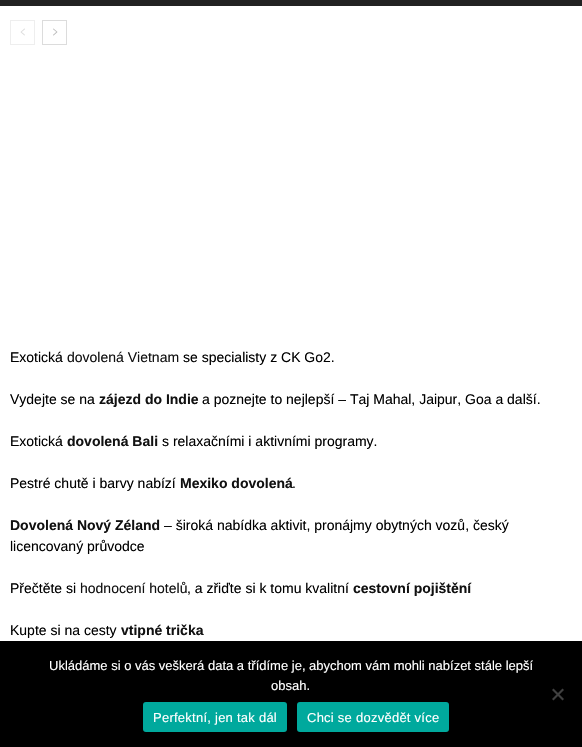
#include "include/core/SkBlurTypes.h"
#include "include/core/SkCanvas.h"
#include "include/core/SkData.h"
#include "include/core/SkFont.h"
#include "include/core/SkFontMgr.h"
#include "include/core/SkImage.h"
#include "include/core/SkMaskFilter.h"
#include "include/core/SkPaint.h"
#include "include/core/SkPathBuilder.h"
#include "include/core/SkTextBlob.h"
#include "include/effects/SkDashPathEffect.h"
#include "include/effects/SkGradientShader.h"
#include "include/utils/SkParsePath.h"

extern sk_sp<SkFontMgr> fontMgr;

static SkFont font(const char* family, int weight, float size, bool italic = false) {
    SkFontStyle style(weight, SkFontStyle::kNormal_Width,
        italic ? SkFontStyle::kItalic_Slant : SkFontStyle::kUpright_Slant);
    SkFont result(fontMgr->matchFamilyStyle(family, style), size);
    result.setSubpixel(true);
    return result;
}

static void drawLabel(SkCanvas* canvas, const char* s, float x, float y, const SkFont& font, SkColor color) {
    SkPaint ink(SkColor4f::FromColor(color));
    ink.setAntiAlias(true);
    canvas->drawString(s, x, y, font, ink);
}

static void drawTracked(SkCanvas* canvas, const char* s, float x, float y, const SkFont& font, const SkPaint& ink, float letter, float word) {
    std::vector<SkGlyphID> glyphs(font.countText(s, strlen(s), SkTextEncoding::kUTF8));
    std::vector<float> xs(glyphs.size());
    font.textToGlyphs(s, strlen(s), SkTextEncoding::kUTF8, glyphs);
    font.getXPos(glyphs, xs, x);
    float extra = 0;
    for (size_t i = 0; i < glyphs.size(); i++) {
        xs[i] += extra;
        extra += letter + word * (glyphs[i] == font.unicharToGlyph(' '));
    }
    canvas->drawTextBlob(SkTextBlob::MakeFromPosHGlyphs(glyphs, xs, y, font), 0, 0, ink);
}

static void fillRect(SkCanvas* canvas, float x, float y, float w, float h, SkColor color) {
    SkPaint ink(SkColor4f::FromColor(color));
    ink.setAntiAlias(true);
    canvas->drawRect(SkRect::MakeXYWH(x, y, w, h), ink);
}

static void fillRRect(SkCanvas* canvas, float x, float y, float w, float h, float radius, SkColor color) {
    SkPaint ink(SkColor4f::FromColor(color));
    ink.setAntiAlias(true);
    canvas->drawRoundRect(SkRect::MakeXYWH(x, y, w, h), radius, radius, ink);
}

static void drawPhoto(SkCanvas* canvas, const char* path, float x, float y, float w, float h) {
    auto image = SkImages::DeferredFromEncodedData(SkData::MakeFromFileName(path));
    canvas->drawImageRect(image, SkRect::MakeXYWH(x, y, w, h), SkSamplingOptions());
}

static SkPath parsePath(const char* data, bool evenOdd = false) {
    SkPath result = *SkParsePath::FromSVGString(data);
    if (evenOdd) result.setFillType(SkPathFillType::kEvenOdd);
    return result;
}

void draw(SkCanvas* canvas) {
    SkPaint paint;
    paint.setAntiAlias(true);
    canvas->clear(0xFFFFFFFF);
    fillRect(canvas, 0, 0, 582, 6, 0xFF222222);
    paint.setStroke(true);
    paint.setStrokeWidth(1);
    paint.setColor(0xFFEEEEEE);
    canvas->drawRect(SkRect::MakeXYWH(10.5f, 20.5f, 24, 24), paint);
    drawPhoto(canvas, "assets/img1.png", 20, 28, 5, 8);
    paint.setColor(0xFFDCDCDC);
    canvas->drawRect(SkRect::MakeXYWH(42.5f, 20.5f, 24, 24), paint);
    drawPhoto(canvas, "assets/img2.png", 53, 28, 5, 8);
    SkFont font1 = font("Liberation Sans", 400, 14);
    drawLabel(canvas, "Exotická", 10, 362, font1, 0xFF000000);
    drawLabel(canvas, "dovolená Vietnam", 67, 362, font1, 0xFF111111);
    drawLabel(canvas, "se specialisty z CK Go2.", 183, 362, font1, 0xFF000000);
    drawLabel(canvas, "Vydejte se na", 10, 404, font1, 0xFF000000);
    SkFont font2 = font("Liberation Sans", 700, 14);
    drawLabel(canvas, "zájezd do Indie", 99, 404, font2, 0xFF111111);
    drawLabel(canvas, "a poznejte to nejlepší – Taj Mahal, Jaipur, Goa a další.", 202, 404, font1, 0xFF000000);
    drawLabel(canvas, "Exotická", 10, 446, font1, 0xFF000000);
    drawLabel(canvas, "dovolená Bali", 67, 446, font2, 0xFF111111);
    drawLabel(canvas, "s relaxačními i aktivními programy.", 162, 446, font1, 0xFF000000);
    drawLabel(canvas, "Pestré chutě i barvy nabízí", 10, 488, font1, 0xFF000000);
    drawLabel(canvas, "Mexiko dovolená", 180, 488, font2, 0xFF111111);
    drawLabel(canvas, ".", 292, 488, font1, 0xFF111111);
    drawLabel(canvas, "Dovolená Nový Zéland", 10, 530, font2, 0xFF111111);
    drawLabel(canvas, "– široká nabídka aktivit, pronájmy obytných vozů, český", 164, 530, font1, 0xFF000000);
    drawLabel(canvas, "licencovaný průvodce", 10, 551, font1, 0xFF000000);
    drawLabel(canvas, "Přečtěte si", 10, 593, font1, 0xFF000000);
    drawLabel(canvas, "hodnocení hotelů", 80, 593, font1, 0xFF111111);
    drawLabel(canvas, ", a zřiďte si k tomu kvalitní", 187, 593, font1, 0xFF000000);
    drawLabel(canvas, "cestovní pojištění", 353, 593, font2, 0xFF111111);
    drawLabel(canvas, "Kupte si na cesty", 10, 635, font1, 0xFF000000);
    drawLabel(canvas, "vtipné trička", 121, 635, font2, 0xFF111111);
    fillRect(canvas, 0, 641, 582, 106, 0xFF000000);
    SkFont font3 = font("Liberation Sans", 400, 13);
    drawLabel(canvas, "Ukládáme si o vás veškerá data a třídíme je, abychom vám mohli nabízet stále lepší", 49, 670, font3, 0xFFFFFFFF);
    drawLabel(canvas, "obsah.", 271, 690, font3, 0xFFFFFFFF);
    paint.setStroke(false);
    paint.setColor(0xFF404040);
    canvas->drawPath(parsePath("M562.5 688.5L564 690L553.5 700.5L552 699Z"), paint);
    canvas->drawPath(parsePath("M552 690L553.5 688.5L564 699L562.5 700.5Z"), paint);
    fillRRect(canvas, 143, 702, 144, 30, 3, 0xFF00A99D);
    paint.setColor(0xFFFFFFFF);
    drawTracked(canvas, "Perfektní, jen tak dál", 153, 722, font3, paint, 0.25f, 0);
    fillRRect(canvas, 297, 702, 152, 30, 3, 0xFF00A99D);
    drawTracked(canvas, "Chci se dozvědět více", 307, 722, font3, paint, 0.25f, 0);
}
